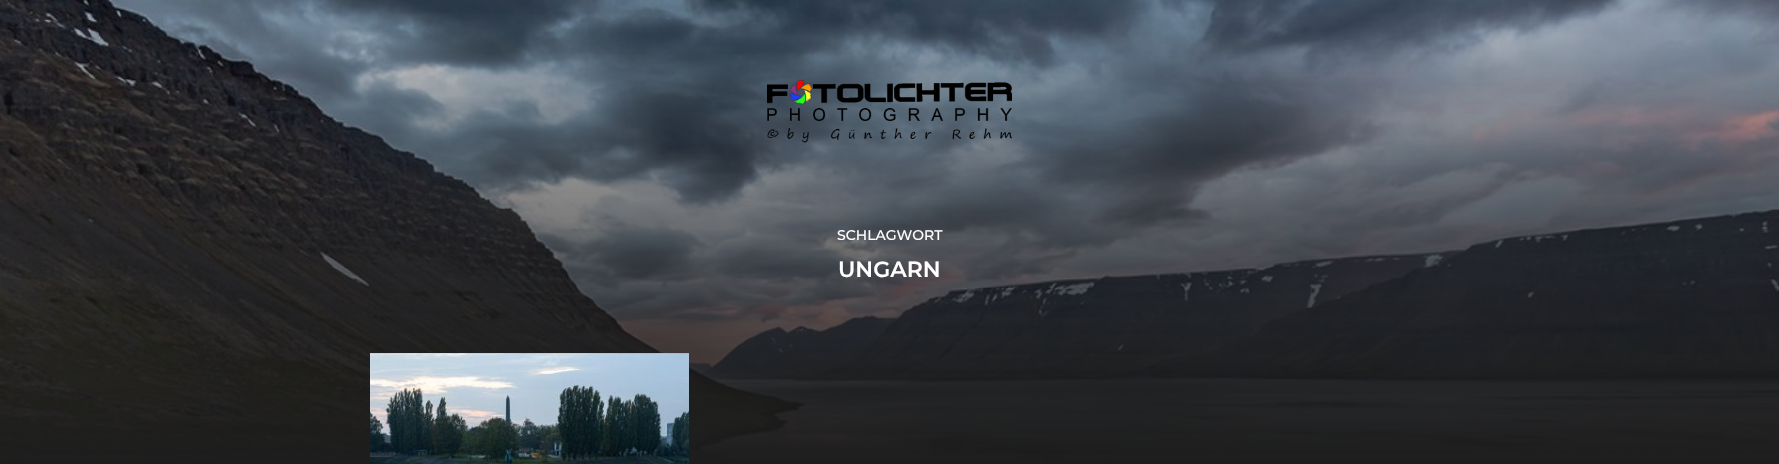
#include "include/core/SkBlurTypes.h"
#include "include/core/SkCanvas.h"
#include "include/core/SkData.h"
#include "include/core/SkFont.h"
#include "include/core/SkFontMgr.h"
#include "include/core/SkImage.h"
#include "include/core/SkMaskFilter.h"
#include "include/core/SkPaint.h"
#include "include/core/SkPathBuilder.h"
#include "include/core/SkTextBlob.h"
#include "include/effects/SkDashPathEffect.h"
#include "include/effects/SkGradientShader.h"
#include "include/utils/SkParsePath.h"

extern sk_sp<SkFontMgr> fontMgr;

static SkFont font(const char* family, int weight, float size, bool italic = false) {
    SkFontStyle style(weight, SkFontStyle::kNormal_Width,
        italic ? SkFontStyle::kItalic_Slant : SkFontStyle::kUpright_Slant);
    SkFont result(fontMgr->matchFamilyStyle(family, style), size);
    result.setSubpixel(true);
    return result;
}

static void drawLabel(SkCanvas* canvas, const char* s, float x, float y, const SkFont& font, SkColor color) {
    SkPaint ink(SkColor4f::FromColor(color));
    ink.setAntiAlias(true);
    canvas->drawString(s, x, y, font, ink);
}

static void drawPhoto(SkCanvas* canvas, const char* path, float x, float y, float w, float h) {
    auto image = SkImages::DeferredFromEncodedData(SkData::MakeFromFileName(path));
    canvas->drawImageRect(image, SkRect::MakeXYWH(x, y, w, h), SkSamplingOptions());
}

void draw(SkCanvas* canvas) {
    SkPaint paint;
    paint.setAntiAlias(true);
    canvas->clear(0xFFFFFFFF);
    drawPhoto(canvas, "assets/img1.png", 0, 0, 1779, 464);
    drawPhoto(canvas, "assets/img2.png", 767, 79, 245, 64);
    SkFont font1 = font("Montserrat", 100, 14);
    drawLabel(canvas, "SCHLAGWORT", 837, 240, font1, 0xFFFFFFFF);
    SkFont font2 = font("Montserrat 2", 100, 22);
    drawLabel(canvas, "UNGARN", 838, 277, font2, 0xFFFFFFFF);
    drawPhoto(canvas, "assets/img3.png", 370, 353, 319, 111);
}
